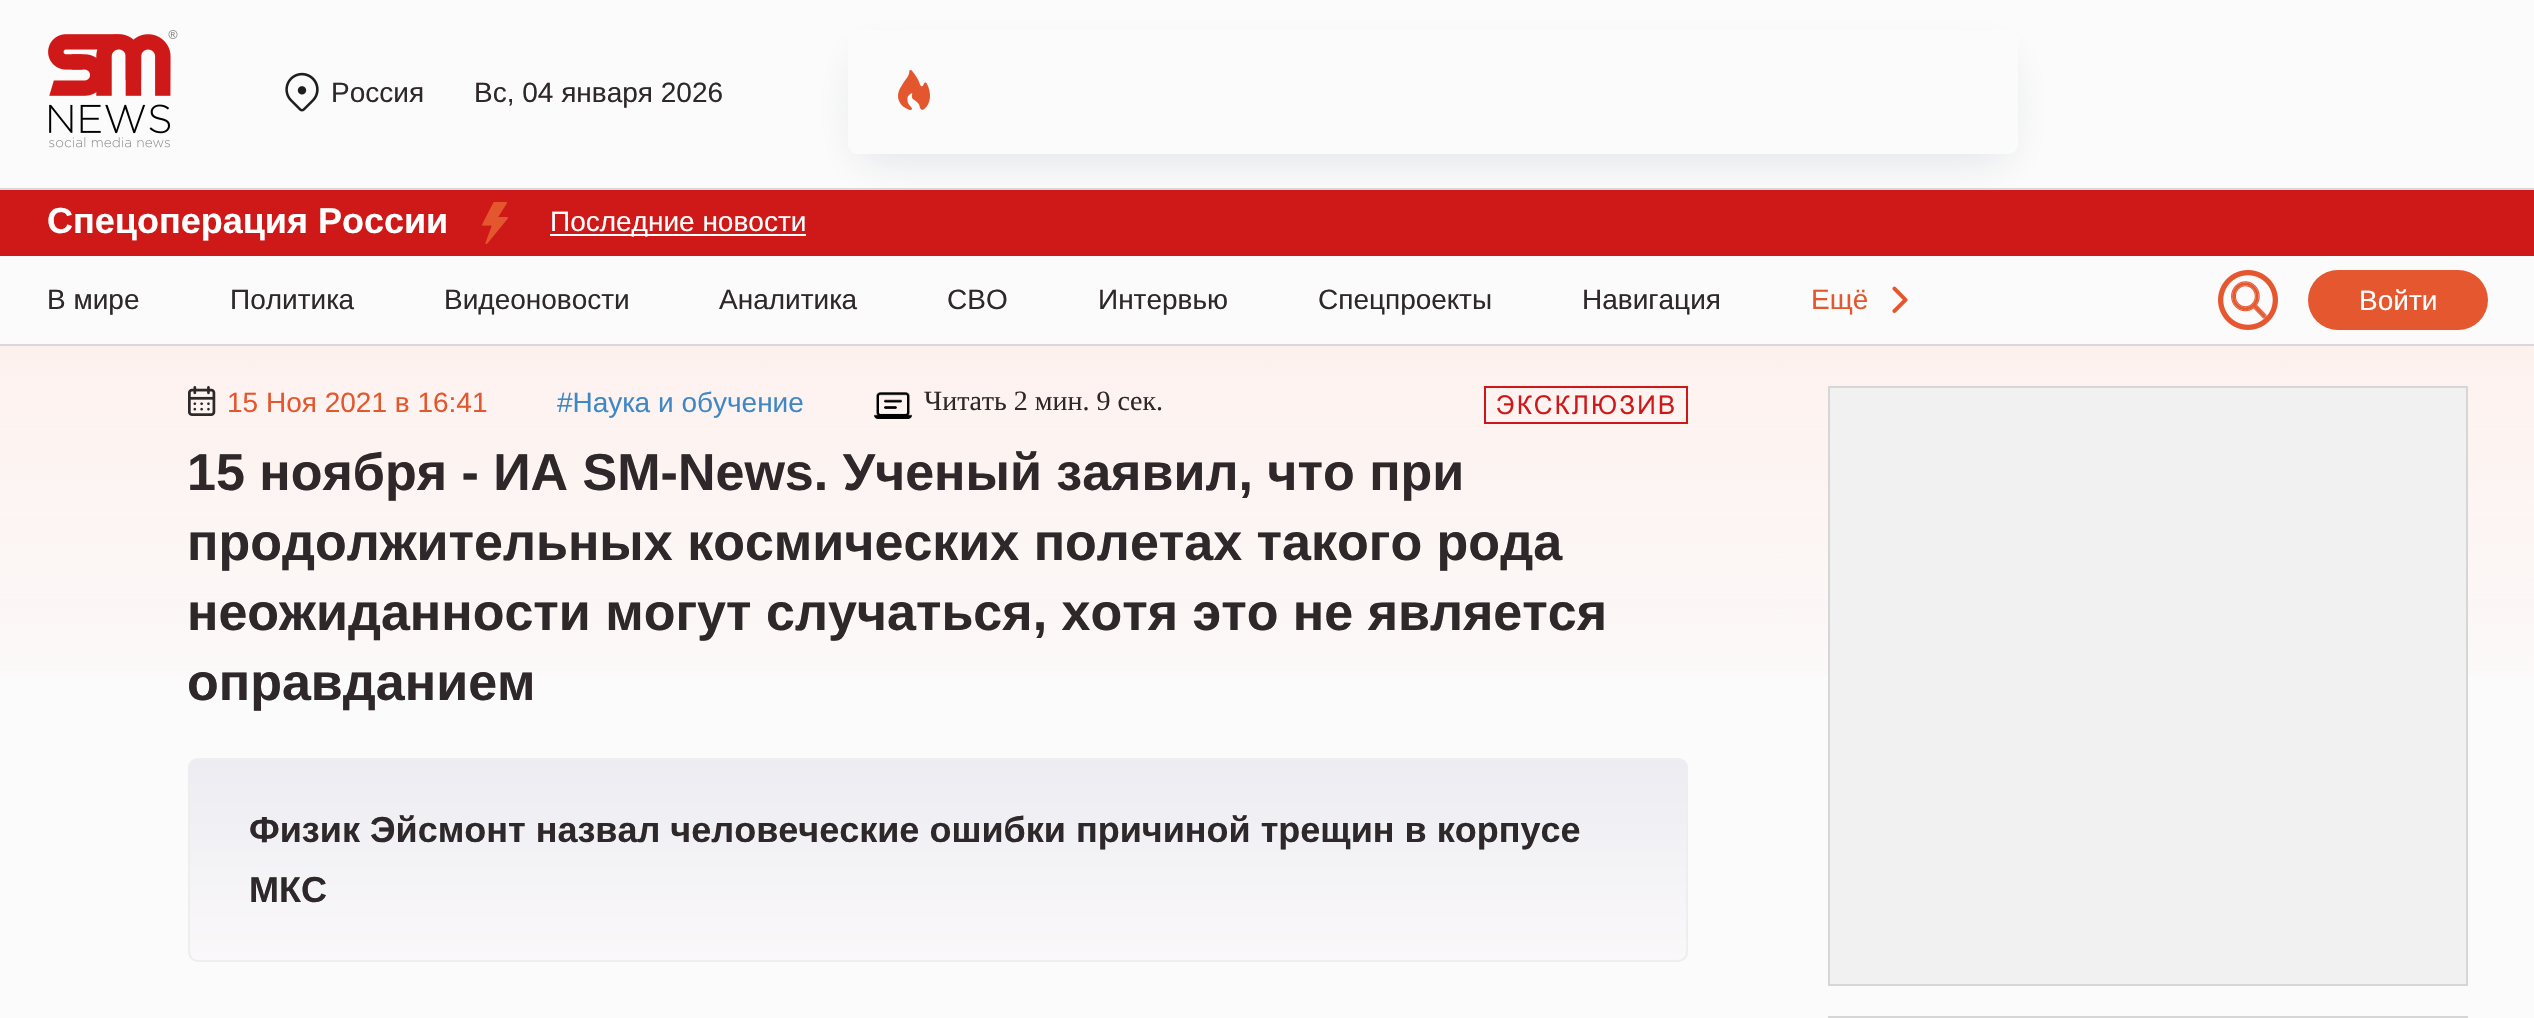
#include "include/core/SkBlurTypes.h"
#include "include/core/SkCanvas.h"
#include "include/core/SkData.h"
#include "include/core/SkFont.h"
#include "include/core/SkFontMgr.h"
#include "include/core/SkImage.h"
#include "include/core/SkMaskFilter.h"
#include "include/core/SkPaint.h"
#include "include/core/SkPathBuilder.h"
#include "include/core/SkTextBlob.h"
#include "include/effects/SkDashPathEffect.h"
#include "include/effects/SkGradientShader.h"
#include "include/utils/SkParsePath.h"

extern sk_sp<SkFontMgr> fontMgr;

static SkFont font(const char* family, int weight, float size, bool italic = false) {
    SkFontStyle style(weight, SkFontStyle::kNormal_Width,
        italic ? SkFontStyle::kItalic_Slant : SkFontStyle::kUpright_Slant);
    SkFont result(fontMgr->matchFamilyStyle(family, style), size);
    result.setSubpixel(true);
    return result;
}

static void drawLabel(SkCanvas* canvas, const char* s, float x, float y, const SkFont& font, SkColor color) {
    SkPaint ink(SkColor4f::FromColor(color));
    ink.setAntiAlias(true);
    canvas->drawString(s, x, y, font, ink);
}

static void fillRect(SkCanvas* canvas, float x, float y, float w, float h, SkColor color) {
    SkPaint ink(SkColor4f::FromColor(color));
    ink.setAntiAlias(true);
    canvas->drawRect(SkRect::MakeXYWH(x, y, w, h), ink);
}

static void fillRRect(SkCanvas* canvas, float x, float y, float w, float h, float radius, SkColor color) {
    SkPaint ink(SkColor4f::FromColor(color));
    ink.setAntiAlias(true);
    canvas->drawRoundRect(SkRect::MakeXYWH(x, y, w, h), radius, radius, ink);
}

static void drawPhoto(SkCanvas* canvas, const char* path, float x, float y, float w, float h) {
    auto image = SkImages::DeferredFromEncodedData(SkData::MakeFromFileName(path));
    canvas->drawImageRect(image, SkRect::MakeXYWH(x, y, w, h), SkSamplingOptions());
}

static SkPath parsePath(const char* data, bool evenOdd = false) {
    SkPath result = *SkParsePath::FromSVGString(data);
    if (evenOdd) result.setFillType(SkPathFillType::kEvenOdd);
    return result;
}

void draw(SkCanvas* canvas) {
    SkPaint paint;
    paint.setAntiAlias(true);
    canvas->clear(0xFFFBFBFB);
    fillRect(canvas, 0, 188, 2534, 2, 0xFFD8D8D8);
    drawPhoto(canvas, "assets/img1.png", 48, 30, 130, 118);
    drawPhoto(canvas, "assets/img2.png", 285, 72, 34, 40);
    SkFont font1 = font("Liberation Sans", 400, 28);
    drawLabel(canvas, "Россия", 331, 102, font1, 0xFF2E282A);
    drawLabel(canvas, "Вс, 04 января 2026", 474, 102, font1, 0xFF2E282A);
    fillRect(canvas, 0, 190, 2534, 66, 0xFFCF1818);
    canvas->save();
    canvas->clipPath(parsePath("M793 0H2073V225H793ZM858 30H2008C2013.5 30 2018 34.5 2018 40V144C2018 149.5 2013.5 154 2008 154H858C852.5 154 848 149.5 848 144V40C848 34.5 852.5 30 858 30Z", true), true);
    paint.setColor(0x1F18274B);
    paint.setMaskFilter(SkMaskFilter::MakeBlur(kNormal_SkBlurStyle, 22));
    canvas->drawRect(SkRect::MakeXYWH(860, 58, 1146, 100), paint);
    paint.setMaskFilter(nullptr);
    canvas->restore();
    drawPhoto(canvas, "assets/img3.png", 898, 70, 32, 40);
    SkFont font2 = font("Liberation Sans", 700, 36);
    drawLabel(canvas, "Спецоперация России", 47, 233, font2, 0xFFFFFFFF);
    drawPhoto(canvas, "assets/img4.png", 482, 202, 26, 42);
    fillRect(canvas, 550, 234, 256, 2, 0xFFFFFFFF);
    drawLabel(canvas, "Последние новости", 550, 231, font1, 0xFFFFFFFF);
    fillRect(canvas, 0, 344, 2534, 2, 0xFFD8D8D8);
    drawLabel(canvas, "В мире", 47, 309, font1, 0xFF2E282A);
    drawLabel(canvas, "Политика", 230, 309, font1, 0xFF2E282A);
    drawLabel(canvas, "Видеоновости", 444, 309, font1, 0xFF2E282A);
    drawLabel(canvas, "Аналитика", 719, 309, font1, 0xFF2E282A);
    drawLabel(canvas, "СВО", 947, 309, font1, 0xFF2E282A);
    drawLabel(canvas, "Интервью", 1098, 309, font1, 0xFF2E282A);
    drawLabel(canvas, "Спецпроекты", 1318, 309, font1, 0xFF2E282A);
    drawLabel(canvas, "Навигация", 1582, 309, font1, 0xFF2E282A);
    drawPhoto(canvas, "assets/img5.png", 1892, 286, 16, 27);
    drawLabel(canvas, "Ещё", 1811, 309, font1, 0xFFE4572E);
    drawPhoto(canvas, "assets/img6.png", 2218, 270, 60, 60);
    fillRRect(canvas, 2308, 270, 180, 60, 30, 0xFFE5572F);
    drawLabel(canvas, "Войти", 2359, 310, font1, 0xFFFFFFFF);
    drawPhoto(canvas, "assets/img7.png", 0, 346, 2534, 329);
    drawPhoto(canvas, "assets/img8.png", 188, 386, 28, 30);
    drawLabel(canvas, "15 Ноя 2021 в 16:41", 227, 412, font1, 0xFFE4572E);
    drawLabel(canvas, "#Наука и обучение", 557, 412, font1, 0xFF3F88C5);
    drawPhoto(canvas, "assets/img9.png", 874, 392, 38, 27);
    SkFont font3 = font("Liberation Serif", 400, 28);
    drawLabel(canvas, "Читать 2 мин. 9 сек.", 924, 410, font3, 0xFF2E282A);
    drawPhoto(canvas, "assets/img10.png", 1484, 386, 204, 38);
    SkFont font4 = font("Liberation Sans", 700, 52);
    drawLabel(canvas, "15 ноября - ИА SM-News. Ученый заявил, что при", 187, 490, font4, 0xFF2E282A);
    drawLabel(canvas, "продолжительных космических полетах такого рода", 187, 560, font4, 0xFF2E282A);
    drawLabel(canvas, "неожиданности могут случаться, хотя это не является", 187, 630, font4, 0xFF2E282A);
    drawLabel(canvas, "оправданием", 187, 700, font4, 0xFF2E282A);
    canvas->save();
    canvas->clipPath(parsePath("M198 758H1678C1683.5 758 1688 762.5 1688 768V952C1688 957.5 1683.5 962 1678 962H198C192.5 962 188 957.5 188 952V768C188 762.5 192.5 758 198 758Z"), true);
    {
        const SkColor colors[] = {0xFFECECF2, 0xFFFAF8F9};
        const float stops[] = {0, 1};
        const SkPoint ends[] = {{938, 760}, {938, 960}};
        paint.setShader(SkGradientShader::MakeLinear(ends, colors, stops, 2, SkTileMode::kClamp));
        paint.setAlpha(255);
    }
    canvas->drawRect(SkRect::MakeXYWH(188, 760, 1500, 200), paint);
    canvas->restore();
    paint.setStroke(true);
    paint.setStrokeWidth(2);
    paint.setShader(nullptr);
    paint.setColor(0xFFEEEEEE);
    canvas->drawRoundRect(SkRect::MakeXYWH(189, 759, 1498, 202), 9, 9, paint);
    drawLabel(canvas, "Физик Эйсмонт назвал человеческие ошибки причиной трещин в корпусе", 249, 842, font2, 0xFF2E282A);
    drawLabel(canvas, "МКС", 249, 902, font2, 0xFF2E282A);
    paint.setStroke(false);
    paint.setColor(0xFFF1F1F1);
    canvas->drawRect(SkRect::MakeXYWH(1829, 387, 638, 598), paint);
    paint.setStroke(true);
    paint.setColor(0xFFD6D6D6);
    canvas->drawRect(SkRect::MakeXYWH(1829, 387, 638, 598), paint);
    canvas->drawRect(SkRect::MakeXYWH(1829, 1017, 638, 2), paint);
}
